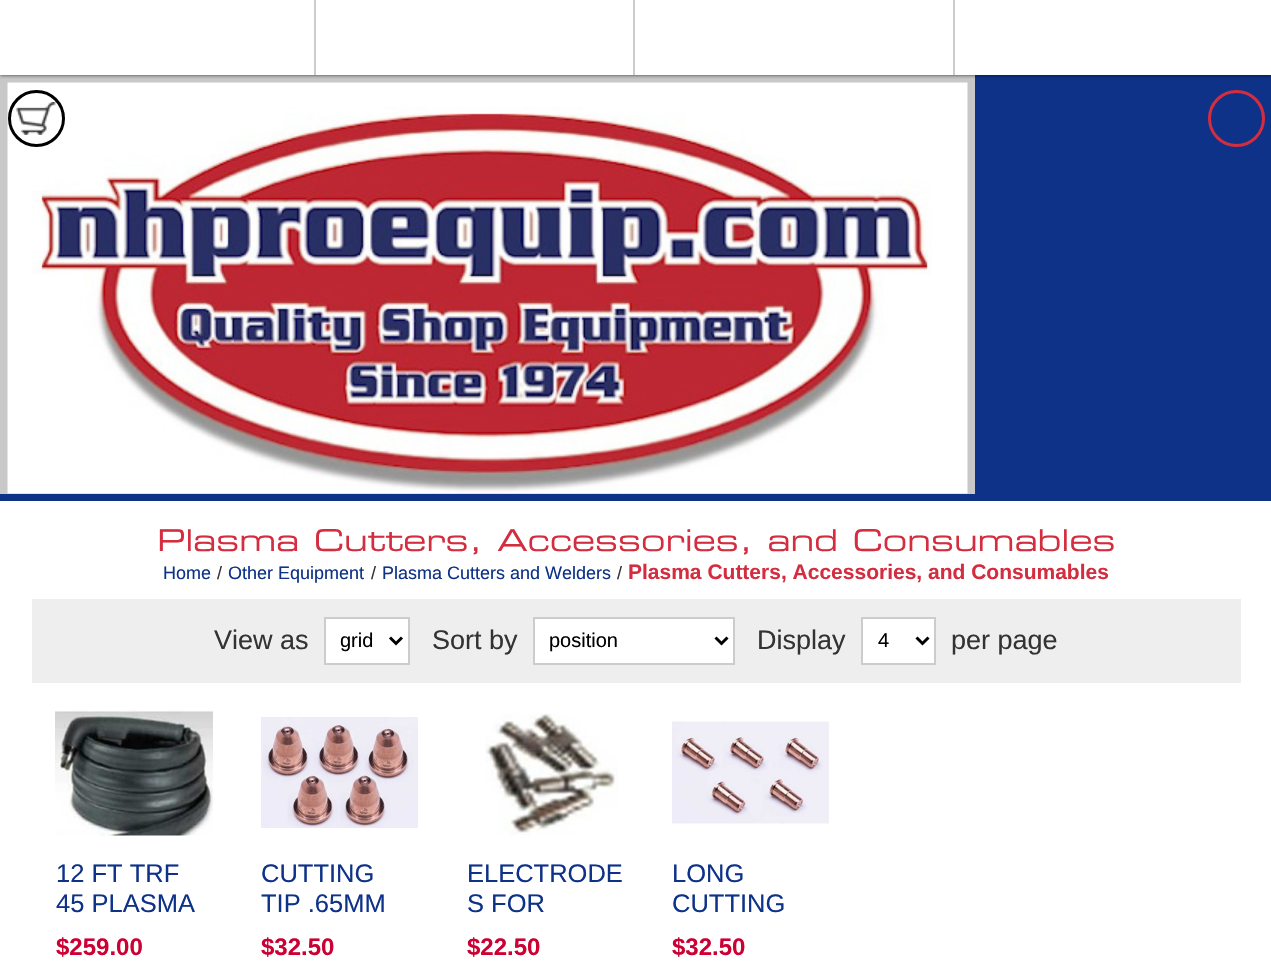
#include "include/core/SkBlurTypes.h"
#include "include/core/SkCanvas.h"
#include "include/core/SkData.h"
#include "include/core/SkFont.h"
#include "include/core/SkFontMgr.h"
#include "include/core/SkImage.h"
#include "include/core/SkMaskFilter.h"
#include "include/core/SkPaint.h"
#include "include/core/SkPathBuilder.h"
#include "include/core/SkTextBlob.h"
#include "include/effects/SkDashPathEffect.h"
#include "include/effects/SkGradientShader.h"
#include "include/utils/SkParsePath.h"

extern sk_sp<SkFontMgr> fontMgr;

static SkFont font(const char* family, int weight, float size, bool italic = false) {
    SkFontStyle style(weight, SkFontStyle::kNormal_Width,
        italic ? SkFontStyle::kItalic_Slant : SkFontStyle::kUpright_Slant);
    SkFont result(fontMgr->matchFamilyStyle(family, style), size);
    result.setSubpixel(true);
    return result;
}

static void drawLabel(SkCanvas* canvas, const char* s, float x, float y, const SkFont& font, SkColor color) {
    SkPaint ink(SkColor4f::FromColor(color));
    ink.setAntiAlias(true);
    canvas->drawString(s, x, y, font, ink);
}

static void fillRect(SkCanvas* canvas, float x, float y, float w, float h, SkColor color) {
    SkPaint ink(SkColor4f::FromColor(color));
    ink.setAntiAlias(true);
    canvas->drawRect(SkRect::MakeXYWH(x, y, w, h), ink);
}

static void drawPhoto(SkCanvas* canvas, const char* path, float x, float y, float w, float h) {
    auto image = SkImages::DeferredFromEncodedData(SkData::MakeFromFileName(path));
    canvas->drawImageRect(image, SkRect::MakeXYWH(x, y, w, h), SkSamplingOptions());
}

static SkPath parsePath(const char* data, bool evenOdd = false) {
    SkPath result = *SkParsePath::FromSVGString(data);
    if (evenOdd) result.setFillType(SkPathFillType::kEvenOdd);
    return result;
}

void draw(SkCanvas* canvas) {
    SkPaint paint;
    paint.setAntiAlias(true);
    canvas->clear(0xFFFFFFFF);
    fillRect(canvas, 0, 75, 1271, 426, 0xFF0E3288);
    fillRect(canvas, 0, 75, 975, 419, 0xFFC8C8C8);
    canvas->save();
    canvas->clipRect(SkRect::MakeXYWH(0, 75, 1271, 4));
    paint.setColor(0xBF000000);
    paint.setMaskFilter(SkMaskFilter::MakeBlur(kNormal_SkBlurStyle, 2));
    canvas->drawRect(SkRect::MakeXYWH(0, 0, 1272, 75), paint);
    paint.setMaskFilter(nullptr);
    canvas->restore();
    fillRect(canvas, 314, 0, 2, 75, 0xFFCCCCCC);
    fillRect(canvas, 633, 0, 2, 75, 0xFFCCCCCC);
    fillRect(canvas, 953, 0, 2, 75, 0xFFCCCCCC);
    drawPhoto(canvas, "assets/img1.png", 7, 82, 961, 412);
    drawPhoto(canvas, "assets/img2.png", 16, 102, 40, 33);
    paint.setStroke(true);
    paint.setStrokeWidth(3);
    paint.setColor(0xFF000000);
    canvas->drawCircle(36.5f, 118.5f, 27, paint);
    paint.setColor(0xFFD42D3F);
    canvas->drawCircle(1236.5f, 118.5f, 27, paint);
    SkFont font1 = font("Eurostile", 400, 30);
    drawLabel(canvas, "Plasma Cutters, Accessories, and Consumables", 157, 551, font1, 0xFFD42D3F);
    SkFont font2 = font("Liberation Sans", 400, 18);
    drawLabel(canvas, "Home", 163, 579, font2, 0xFF0E3288);
    drawLabel(canvas, "/", 217, 579, font2, 0xFF333333);
    drawLabel(canvas, "Other Equipment", 228, 579, font2, 0xFF0E3288);
    drawLabel(canvas, "/", 371, 579, font2, 0xFF333333);
    drawLabel(canvas, "Plasma Cutters and Welders", 382, 579, font2, 0xFF0E3288);
    drawLabel(canvas, "/", 617, 579, font2, 0xFF333333);
    SkFont font3 = font("Liberation Sans", 700, 21);
    drawLabel(canvas, "Plasma Cutters, Accessories, and Consumables", 628, 579, font3, 0xFFD42D3F);
    fillRect(canvas, 32, 599, 1209, 84, 0xFFEEEEEE);
    SkFont font4 = font("Liberation Sans", 400, 27);
    drawLabel(canvas, "View as", 214, 649, font4, 0xFF333333);
    paint.setStroke(false);
    paint.setColor(0xFFFFFFFF);
    canvas->drawRect(SkRect::MakeXYWH(325, 618, 84, 46), paint);
    paint.setStroke(true);
    paint.setStrokeWidth(2);
    paint.setColor(0xFFCCCCCC);
    canvas->drawRect(SkRect::MakeXYWH(325, 618, 84, 46), paint);
    paint.setStrokeWidth(3);
    paint.setColor(0xFF000000);
    canvas->drawPath(parsePath("M390 637.5L396 643.5L402 637.5"), paint);
    SkFont font5 = font("Liberation Sans", 400, 20);
    drawLabel(canvas, "grid", 340, 647, font5, 0xFF000000);
    drawLabel(canvas, "Sort by", 432, 649, font4, 0xFF333333);
    paint.setStroke(false);
    paint.setColor(0xFFFFFFFF);
    canvas->drawRect(SkRect::MakeXYWH(534, 618, 200, 46), paint);
    paint.setStroke(true);
    paint.setStrokeWidth(2);
    paint.setColor(0xFFCCCCCC);
    canvas->drawRect(SkRect::MakeXYWH(534, 618, 200, 46), paint);
    paint.setStrokeWidth(3);
    paint.setColor(0xFF000000);
    canvas->drawPath(parsePath("M715.5 637.5L721.5 643.5L727.5 637.5"), paint);
    drawLabel(canvas, "position", 549, 647, font5, 0xFF000000);
    drawLabel(canvas, "Display", 757, 649, font4, 0xFF333333);
    paint.setStroke(false);
    paint.setColor(0xFFFFFFFF);
    canvas->drawRect(SkRect::MakeXYWH(862, 618, 73, 46), paint);
    paint.setStroke(true);
    paint.setStrokeWidth(2);
    paint.setColor(0xFFCCCCCC);
    canvas->drawRect(SkRect::MakeXYWH(862, 618, 73, 46), paint);
    paint.setStrokeWidth(3);
    paint.setColor(0xFF000000);
    canvas->drawPath(parsePath("M916.5 637.5L922.5 643.5L928.5 637.5"), paint);
    drawLabel(canvas, "4", 878, 647, font5, 0xFF000000);
    drawLabel(canvas, "per page", 951, 649, font4, 0xFF333333);
    drawPhoto(canvas, "assets/img3.png", 55, 710, 158, 126);
    SkFont font6 = font("Liberation Sans", 400, 25.5f);
    drawLabel(canvas, "12 FT TRF", 56, 882, font6, 0xFF0E3288);
    drawLabel(canvas, "45 PLASMA", 56, 912, font6, 0xFF0E3288);
    SkFont font7 = font("Liberation Sans", 700, 24);
    drawLabel(canvas, "$259.00", 56, 955, font7, 0xFFCC0033);
    drawPhoto(canvas, "assets/img4.png", 261, 717, 157, 111);
    drawLabel(canvas, "CUTTING", 261, 882, font6, 0xFF0E3288);
    drawLabel(canvas, "TIP .65MM", 261, 912, font6, 0xFF0E3288);
    drawLabel(canvas, "$32.50", 261, 955, font7, 0xFFCC0033);
    drawPhoto(canvas, "assets/img5.png", 485, 713, 133, 122);
    drawLabel(canvas, "ELECTRODE", 467, 882, font6, 0xFF0E3288);
    drawLabel(canvas, "S FOR", 467, 912, font6, 0xFF0E3288);
    drawLabel(canvas, "$22.50", 467, 955, font7, 0xFFCC0033);
    drawPhoto(canvas, "assets/img6.png", 672, 721, 157, 103);
    drawLabel(canvas, "LONG", 672, 882, font6, 0xFF0E3288);
    drawLabel(canvas, "CUTTING", 672, 912, font6, 0xFF0E3288);
    drawLabel(canvas, "$32.50", 672, 955, font7, 0xFFCC0033);
}
